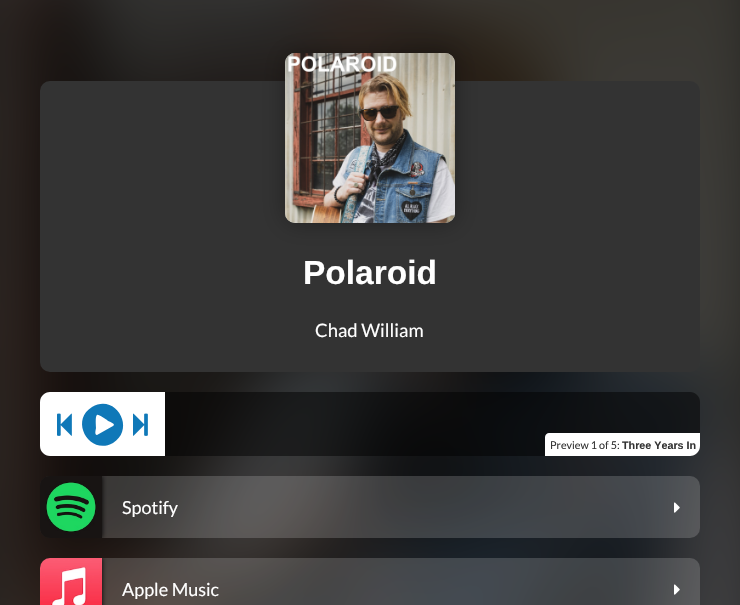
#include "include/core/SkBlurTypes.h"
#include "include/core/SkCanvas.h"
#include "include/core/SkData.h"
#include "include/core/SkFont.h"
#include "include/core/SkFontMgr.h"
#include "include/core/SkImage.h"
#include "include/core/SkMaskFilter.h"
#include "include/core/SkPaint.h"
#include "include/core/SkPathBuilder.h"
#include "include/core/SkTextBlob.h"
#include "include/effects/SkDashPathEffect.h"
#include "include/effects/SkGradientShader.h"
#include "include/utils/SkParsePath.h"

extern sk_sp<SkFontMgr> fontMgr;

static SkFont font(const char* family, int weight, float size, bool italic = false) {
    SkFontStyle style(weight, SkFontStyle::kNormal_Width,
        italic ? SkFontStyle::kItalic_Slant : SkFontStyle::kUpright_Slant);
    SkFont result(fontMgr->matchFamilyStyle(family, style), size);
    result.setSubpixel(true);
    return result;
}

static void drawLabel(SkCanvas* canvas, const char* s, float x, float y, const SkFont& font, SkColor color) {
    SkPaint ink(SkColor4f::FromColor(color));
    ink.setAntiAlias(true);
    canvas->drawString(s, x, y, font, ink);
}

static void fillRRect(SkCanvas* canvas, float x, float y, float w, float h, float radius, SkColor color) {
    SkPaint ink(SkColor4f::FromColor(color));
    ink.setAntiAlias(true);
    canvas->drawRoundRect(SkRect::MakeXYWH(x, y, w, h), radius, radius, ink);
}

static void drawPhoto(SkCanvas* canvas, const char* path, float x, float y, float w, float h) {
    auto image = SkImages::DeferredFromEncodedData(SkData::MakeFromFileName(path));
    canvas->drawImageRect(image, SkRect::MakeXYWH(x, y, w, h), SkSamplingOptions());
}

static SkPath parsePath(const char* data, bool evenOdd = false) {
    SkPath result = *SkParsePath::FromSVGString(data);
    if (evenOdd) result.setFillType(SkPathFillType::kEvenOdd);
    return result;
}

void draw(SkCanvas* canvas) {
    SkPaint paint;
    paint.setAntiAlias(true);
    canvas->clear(0xFF000000);
    drawPhoto(canvas, "assets/img1.png", 0, 0, 740, 605);
    fillRRect(canvas, 40, 81, 660, 291, 10, 0xFF333333);
    paint.setColor(0x59000000);
    paint.setMaskFilter(SkMaskFilter::MakeBlur(kNormal_SkBlurStyle, 12.5f));
    canvas->drawRoundRect(SkRect::MakeXYWH(285, 53, 170, 170), 10, 10, paint);
    paint.setMaskFilter(nullptr);
    fillRRect(canvas, 285, 53, 170, 170, 10, 0xFFCCCCCC);
    drawPhoto(canvas, "assets/img2.png", 285, 53, 170, 170);
    SkFont font1 = font("Liberation Sans", 700, 33.5f);
    drawLabel(canvas, "Polaroid", 303, 284, font1, 0xFFFFFFFF);
    SkFont font2 = font("Lato", 400, 18.5f);
    drawLabel(canvas, "Chad William", 315, 337, font2, 0xFFFFFFFF);
    paint.setColor(0xFFFFFFFF);
    canvas->drawPath(parsePath("M50 392H165V456H50C44.5 456 40 451.5 40 446V402C40 396.5 44.5 392 50 392Z"), paint);
    drawPhoto(canvas, "assets/img3.png", 57, 413, 15, 23);
    paint.setColor(0xFF0F78B8);
    canvas->drawPath(parsePath("M92 407C116 393 136 429 113 443C90 456 69 421 92 407ZM113 426C117 424 108 421 108 421C106 419 98 414 97 415C95 416 96 426 96 428C96 429 94 435 97 435Z"), paint);
    drawPhoto(canvas, "assets/img4.png", 133, 413, 15, 23);
    paint.setColor(0x80000000);
    canvas->drawPath(parsePath("M165 392H690C695.5 392 700 396.5 700 402V446C700 451.5 695.5 456 690 456H165Z"), paint);
    paint.setColor(0xFFFFFFFF);
    canvas->drawPath(parsePath("M549 433H700V446C700 451.5 695.5 456 690 456H545V437C545 435 547 433 549 433Z"), paint);
    SkFont font3 = font("Lato", 400, 10.75f);
    drawLabel(canvas, "Preview 1 of 5:", 550, 449, font3, 0xFF333333);
    SkFont font4 = font("Liberation Sans", 700, 10.75f);
    drawLabel(canvas, "Three Years In", 622, 449, font4, 0xFF333333);
    fillRRect(canvas, 40, 476, 660, 62, 10, 0x2BFFFFFF);
    canvas->save();
    canvas->clipPath(parsePath("M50 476H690C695.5 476 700 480.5 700 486V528C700 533.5 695.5 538 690 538H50C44.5 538 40 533.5 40 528V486C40 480.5 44.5 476 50 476Z"), true);
    paint.setColor(0xFF000000);
    paint.setMaskFilter(SkMaskFilter::MakeBlur(kNormal_SkBlurStyle, 2.5f));
    canvas->drawRect(SkRect::MakeXYWH(40, 476, 62, 62), paint);
    paint.setMaskFilter(nullptr);
    canvas->restore();
    drawPhoto(canvas, "assets/img5.png", 40, 476, 62, 62);
    SkFont font5 = font("Lato", 400, 18);
    drawLabel(canvas, "Spotify", 122, 514, font5, 0xFFFFFFFF);
    drawPhoto(canvas, "assets/img6.png", 674, 502, 6, 11);
    fillRRect(canvas, 40, 558, 660, 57, 10, 0x2BFFFFFF);
    canvas->save();
    canvas->clipPath(parsePath("M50 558H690C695.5 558 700 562.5 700 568V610C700 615.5 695.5 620 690 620H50C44.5 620 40 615.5 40 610V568C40 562.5 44.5 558 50 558Z"), true);
    paint.setMaskFilter(SkMaskFilter::MakeBlur(kNormal_SkBlurStyle, 2.5f));
    canvas->drawRect(SkRect::MakeXYWH(40, 558, 62, 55), paint);
    paint.setMaskFilter(nullptr);
    canvas->restore();
    drawPhoto(canvas, "assets/img7.png", 40, 558, 62, 47);
    drawLabel(canvas, "Apple Music", 122, 596, font5, 0xFFFFFFFF);
    drawPhoto(canvas, "assets/img8.png", 674, 584, 6, 11);
}
